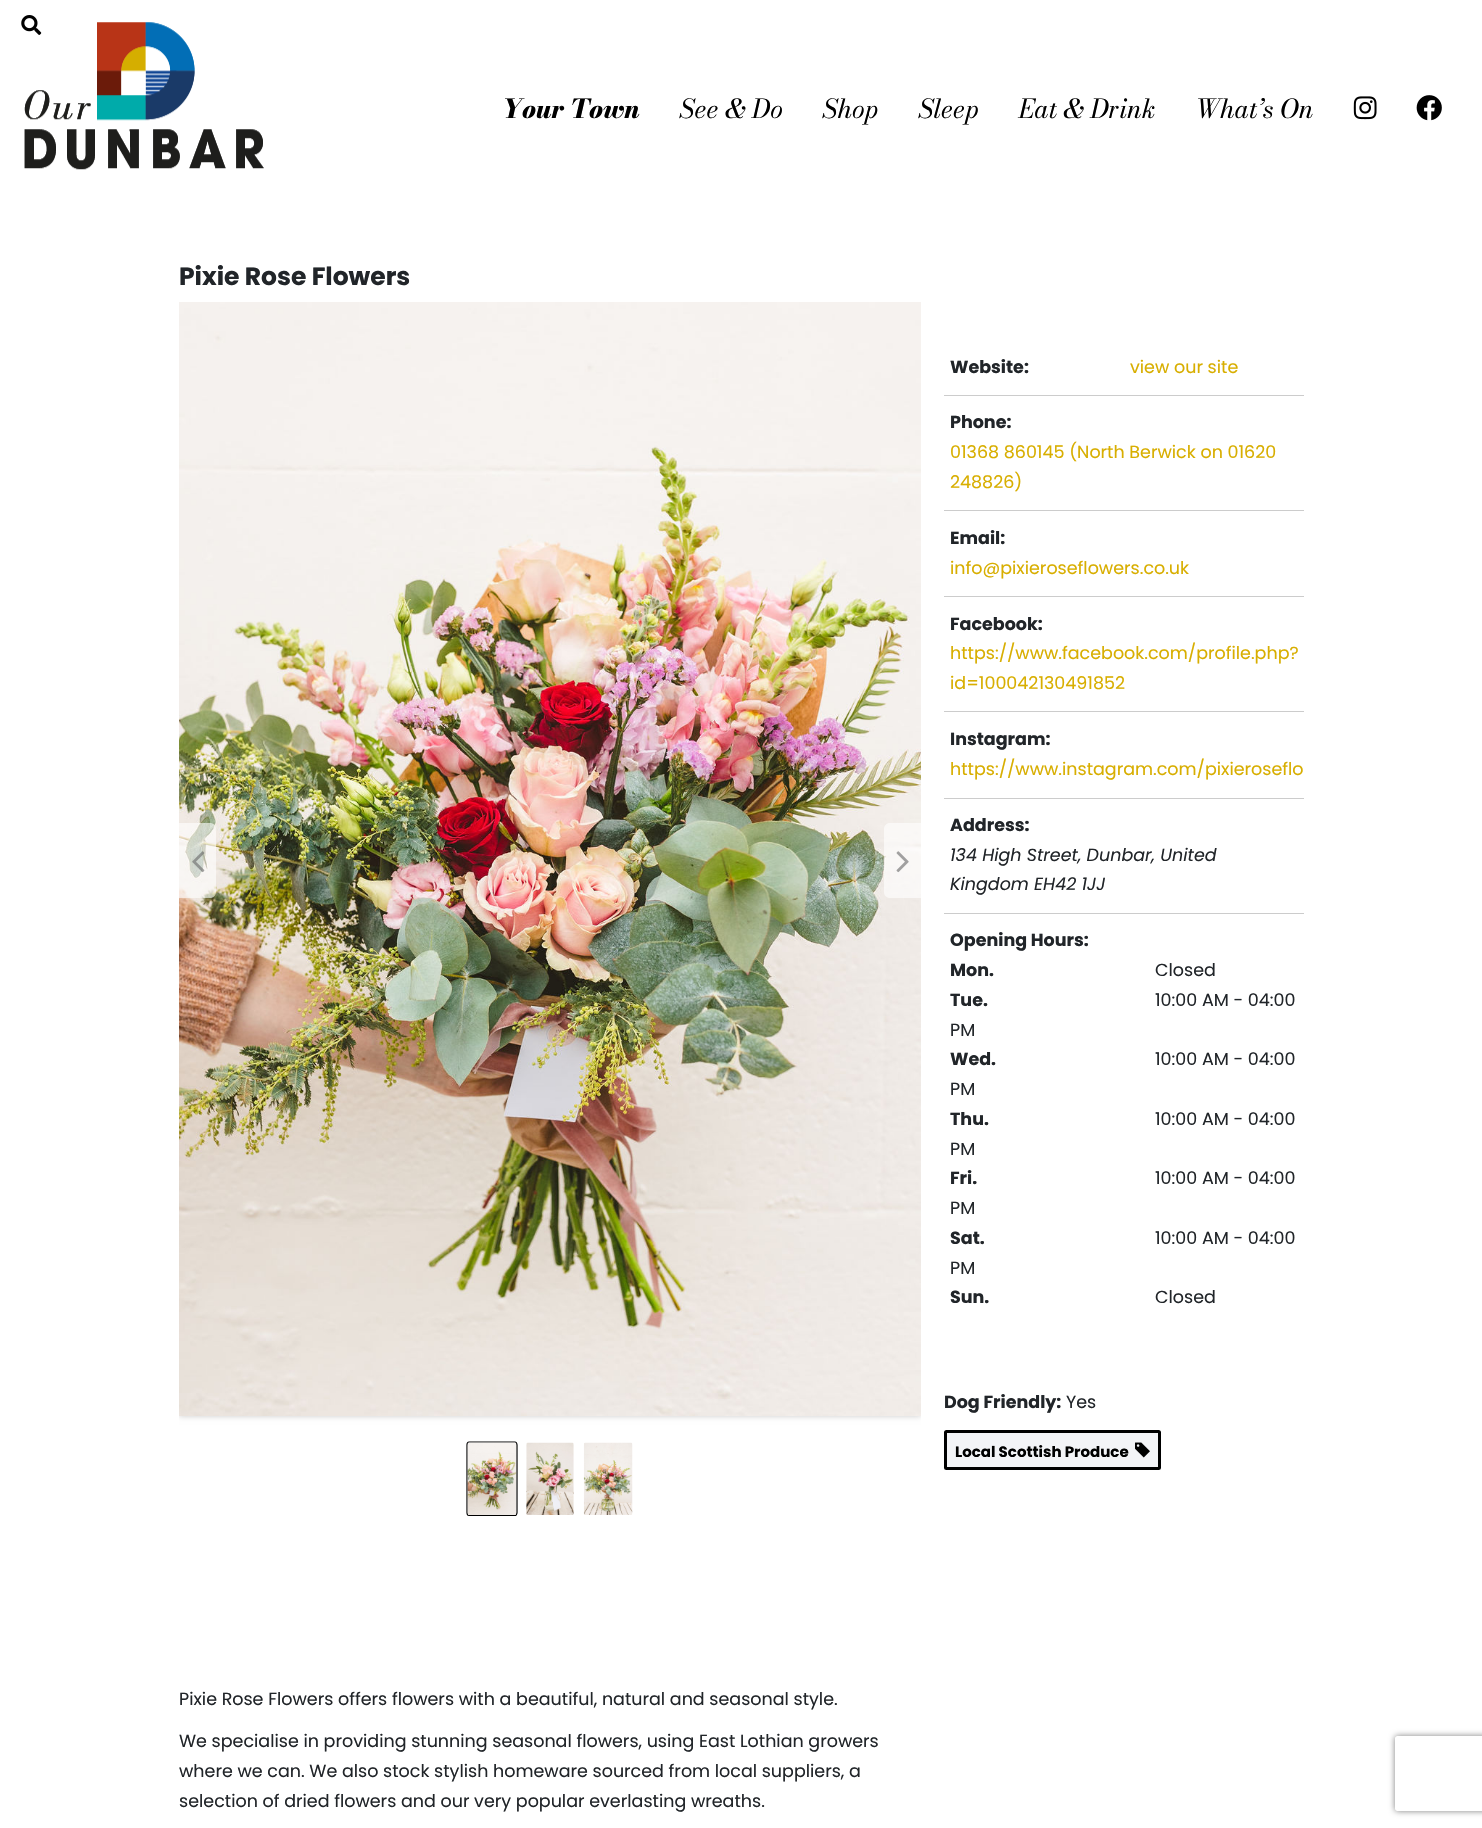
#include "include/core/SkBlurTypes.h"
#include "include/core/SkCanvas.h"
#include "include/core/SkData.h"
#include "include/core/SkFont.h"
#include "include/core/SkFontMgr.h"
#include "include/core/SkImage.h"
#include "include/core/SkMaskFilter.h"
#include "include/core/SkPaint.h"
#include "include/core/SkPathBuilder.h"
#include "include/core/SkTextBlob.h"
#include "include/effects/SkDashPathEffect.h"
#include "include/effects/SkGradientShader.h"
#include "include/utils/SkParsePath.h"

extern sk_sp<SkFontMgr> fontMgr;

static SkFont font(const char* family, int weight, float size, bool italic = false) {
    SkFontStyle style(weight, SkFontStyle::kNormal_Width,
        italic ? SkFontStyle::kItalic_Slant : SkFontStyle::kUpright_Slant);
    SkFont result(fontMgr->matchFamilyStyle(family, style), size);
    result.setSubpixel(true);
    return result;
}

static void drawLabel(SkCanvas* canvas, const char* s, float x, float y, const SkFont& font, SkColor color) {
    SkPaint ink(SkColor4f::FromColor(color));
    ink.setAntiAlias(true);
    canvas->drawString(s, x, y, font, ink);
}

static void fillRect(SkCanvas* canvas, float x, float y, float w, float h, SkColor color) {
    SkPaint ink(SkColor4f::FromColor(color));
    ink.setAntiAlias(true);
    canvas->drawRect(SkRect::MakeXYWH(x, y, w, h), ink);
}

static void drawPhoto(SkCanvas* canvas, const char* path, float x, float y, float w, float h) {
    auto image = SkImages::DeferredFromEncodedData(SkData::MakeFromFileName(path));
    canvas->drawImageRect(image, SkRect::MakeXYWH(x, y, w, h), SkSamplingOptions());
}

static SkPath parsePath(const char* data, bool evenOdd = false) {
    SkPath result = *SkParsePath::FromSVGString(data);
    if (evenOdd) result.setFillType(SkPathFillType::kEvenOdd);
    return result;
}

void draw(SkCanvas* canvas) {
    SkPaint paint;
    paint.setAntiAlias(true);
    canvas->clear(0xFFFFFFFF);
    drawPhoto(canvas, "assets/img2.png", 24, 22, 240, 148);
    drawPhoto(canvas, "assets/img1.png", 21, 15, 21, 20);
    SkFont font1 = font("Bodoni Moda", 800, 26, true);
    drawLabel(canvas, "Your Town", 502, 118, font1, 0xFF000000);
    SkFont font2 = font("Bodoni Moda", 400, 26, true);
    drawLabel(canvas, "See & Do", 680, 118, font2, 0xFF000000);
    drawLabel(canvas, "Shop", 823, 118, font2, 0xFF000000);
    drawLabel(canvas, "Sleep", 919, 118, font2, 0xFF000000);
    drawLabel(canvas, "Eat & Drink", 1019, 118, font2, 0xFF000000);
    drawLabel(canvas, "What’s On", 1195, 118, font2, 0xFF000000);
    drawPhoto(canvas, "assets/img3.png", 1353, 96, 24, 24);
    drawPhoto(canvas, "assets/img4.png", 1416, 95, 26, 26);
    SkFont font3 = font("Poppins", 700, 25);
    drawLabel(canvas, "Pixie Rose Flowers", 179, 285, font3, 0xFF212529);
    fillRect(canvas, 944, 395, 360, 1, 0xFFCCCCCC);
    SkFont font4 = font("Poppins", 700, 17.5f);
    drawLabel(canvas, "Website:", 950, 373, font4, 0xFF212529);
    SkFont font5 = font("Poppins", 400, 17.5f);
    drawLabel(canvas, "view our site", 1130, 373, font5, 0xFFD8AE00);
    fillRect(canvas, 944, 510, 360, 1, 0xFFCCCCCC);
    drawLabel(canvas, "Phone:", 950, 428, font4, 0xFF212529);
    drawLabel(canvas, "01368 860145 (North Berwick on 01620", 950, 458, font5, 0xFFD8AE00);
    drawLabel(canvas, "248826)", 950, 488, font5, 0xFFD8AE00);
    fillRect(canvas, 944, 596, 360, 1, 0xFFCCCCCC);
    drawLabel(canvas, "Email:", 950, 544, font4, 0xFF212529);
    drawLabel(canvas, "info@pixieroseflowers.co.uk", 950, 574, font5, 0xFFD8AE00);
    fillRect(canvas, 944, 711, 360, 1, 0xFFCCCCCC);
    drawLabel(canvas, "Facebook:", 950, 630, font4, 0xFF212529);
    drawLabel(canvas, "https://www.facebook.com/profile.php?", 950, 659, font5, 0xFFD8AE00);
    drawLabel(canvas, "id=100042130491852", 950, 689, font5, 0xFFD8AE00);
    fillRect(canvas, 944, 798, 360, 1, 0xFFCCCCCC);
    drawLabel(canvas, "Instagram:", 950, 745, font4, 0xFF212529);
    drawLabel(canvas, "https://www.instagram.com/pixieroseflo", 950, 775, font5, 0xFFD8AE00);
    fillRect(canvas, 944, 913, 360, 1, 0xFFCCCCCC);
    drawLabel(canvas, "Address:", 950, 831, font4, 0xFF212529);
    SkFont font6 = font("Poppins", 400, 17.5f, true);
    drawLabel(canvas, "134 High Street, Dunbar, United", 950, 861, font6, 0xFF212529);
    drawLabel(canvas, "Kingdom EH42 1JJ", 950, 890, font6, 0xFF212529);
    drawLabel(canvas, "Opening Hours:", 950, 946, font4, 0xFF212529);
    drawLabel(canvas, "Mon.", 950, 976, font4, 0xFF212529);
    drawLabel(canvas, "Closed", 1155, 976, font5, 0xFF212529);
    drawLabel(canvas, "Tue.", 950, 1006, font4, 0xFF212529);
    drawLabel(canvas, "10:00 AM - 04:00", 1155, 1006, font5, 0xFF212529);
    drawLabel(canvas, "PM", 950, 1036, font5, 0xFF212529);
    drawLabel(canvas, "Wed.", 950, 1065, font4, 0xFF212529);
    drawLabel(canvas, "10:00 AM - 04:00", 1155, 1065, font5, 0xFF212529);
    drawLabel(canvas, "PM", 950, 1095, font5, 0xFF212529);
    drawLabel(canvas, "Thu.", 950, 1125, font4, 0xFF212529);
    drawLabel(canvas, "10:00 AM - 04:00", 1155, 1125, font5, 0xFF212529);
    drawLabel(canvas, "PM", 950, 1155, font5, 0xFF212529);
    drawLabel(canvas, "Fri.", 950, 1184, font4, 0xFF212529);
    drawLabel(canvas, "10:00 AM - 04:00", 1155, 1184, font5, 0xFF212529);
    drawLabel(canvas, "PM", 950, 1214, font5, 0xFF212529);
    drawLabel(canvas, "Sat.", 950, 1244, font4, 0xFF212529);
    drawLabel(canvas, "10:00 AM - 04:00", 1155, 1244, font5, 0xFF212529);
    drawLabel(canvas, "PM", 950, 1274, font5, 0xFF212529);
    drawLabel(canvas, "Sun.", 950, 1303, font4, 0xFF212529);
    drawLabel(canvas, "Closed", 1155, 1303, font5, 0xFF212529);
    drawLabel(canvas, "Dog Friendly:", 944, 1408, font4, 0xFF212529);
    drawLabel(canvas, "Yes", 1066, 1408, font5, 0xFF212529);
    paint.setColor(0xFFF3F4F7);
    canvas->drawRoundRect(SkRect::MakeXYWH(945.5f, 1431.5f, 214, 37), 1, 1, paint);
    paint.setStroke(true);
    paint.setStrokeWidth(3);
    paint.setColor(0xFF000000);
    canvas->drawRoundRect(SkRect::MakeXYWH(945.5f, 1431.5f, 214, 37), 1, 1, paint);
    SkFont font7 = font("Poppins", 700, 15);
    drawLabel(canvas, "Local Scottish Produce", 955, 1457, font7, 0xFF000000);
    drawPhoto(canvas, "assets/img5.png", 1135, 1442, 15, 16);
    canvas->save();
    canvas->clipRect(SkRect::MakeXYWH(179, 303, 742, 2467));
    paint.setStroke(false);
    paint.setColor(0xFFCCCCCC);
    paint.setMaskFilter(SkMaskFilter::MakeBlur(kNormal_SkBlurStyle, 3));
    canvas->drawRect(SkRect::MakeXYWH(179, 303, 742, 1113), paint);
    paint.setMaskFilter(nullptr);
    canvas->restore();
    drawPhoto(canvas, "assets/img6.png", 179, 302, 742, 1114);
    paint.setColor(0x99FFFFFF);
    canvas->drawPath(parsePath("M179 823H210C213.5 823 216 825.5 216 829V892C216 895.5 213.5 898 210 898H179Z"), paint);
    drawPhoto(canvas, "assets/img7.png", 192, 851, 13, 22);
    canvas->drawPath(parsePath("M890 823H921V898H890C886.5 898 884 895.5 884 892V829C884 825.5 886.5 823 890 823Z"), paint);
    drawPhoto(canvas, "assets/img8.png", 896, 851, 13, 22);
    paint.setStroke(true);
    paint.setStrokeWidth(1.2f);
    paint.setColor(0xFF000000);
    canvas->drawPath(parsePath("M469 1442H515C516 1442 517 1443.5 517 1445V1512.5C517 1514 516 1515.5 515 1515.5H469C467.5 1515.5 467 1514 467 1512.5V1445C467 1443.5 467.5 1442 469 1442Z"), paint);
    drawPhoto(canvas, "assets/img9.png", 467, 1442, 50, 73);
    drawPhoto(canvas, "assets/img10.png", 526, 1442, 48, 73);
    drawPhoto(canvas, "assets/img11.png", 583, 1442, 50, 73);
    drawLabel(canvas, "Pixie Rose Flowers offers flowers with a beautiful, natural and seasonal style.", 179, 1705, font5, 0xFF212529);
    drawLabel(canvas, "We specialise in providing stunning seasonal flowers, using East Lothian growers", 179, 1747, font5, 0xFF212529);
    drawLabel(canvas, "where we can. We also stock stylish homeware sourced from local suppliers, a", 179, 1777, font5, 0xFF212529);
    drawLabel(canvas, "selection of dried flowers and our very popular everlasting wreaths.", 179, 1807, font5, 0xFF212529);
    canvas->save();
    canvas->clipPath(parsePath("M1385 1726H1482V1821H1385ZM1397.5 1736H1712.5C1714 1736 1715 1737 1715 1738.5V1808.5C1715 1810 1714 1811 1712.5 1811H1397.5C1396 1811 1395 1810 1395 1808.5V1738.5C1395 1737 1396 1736 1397.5 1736Z", true), true);
    paint.setStroke(false);
    paint.setColor(0xFF808080);
    paint.setMaskFilter(SkMaskFilter::MakeBlur(kNormal_SkBlurStyle, 3));
    canvas->drawRoundRect(SkRect::MakeXYWH(1395, 1736, 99, 75), 2.5f, 2.5f, paint);
    paint.setMaskFilter(nullptr);
    canvas->restore();
}
